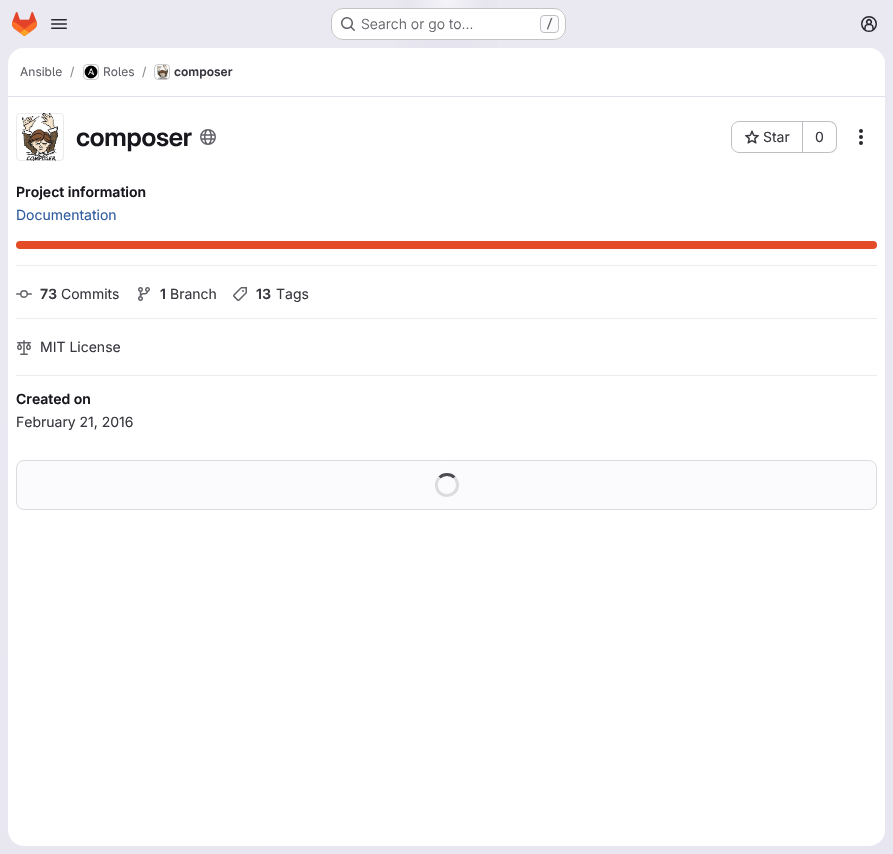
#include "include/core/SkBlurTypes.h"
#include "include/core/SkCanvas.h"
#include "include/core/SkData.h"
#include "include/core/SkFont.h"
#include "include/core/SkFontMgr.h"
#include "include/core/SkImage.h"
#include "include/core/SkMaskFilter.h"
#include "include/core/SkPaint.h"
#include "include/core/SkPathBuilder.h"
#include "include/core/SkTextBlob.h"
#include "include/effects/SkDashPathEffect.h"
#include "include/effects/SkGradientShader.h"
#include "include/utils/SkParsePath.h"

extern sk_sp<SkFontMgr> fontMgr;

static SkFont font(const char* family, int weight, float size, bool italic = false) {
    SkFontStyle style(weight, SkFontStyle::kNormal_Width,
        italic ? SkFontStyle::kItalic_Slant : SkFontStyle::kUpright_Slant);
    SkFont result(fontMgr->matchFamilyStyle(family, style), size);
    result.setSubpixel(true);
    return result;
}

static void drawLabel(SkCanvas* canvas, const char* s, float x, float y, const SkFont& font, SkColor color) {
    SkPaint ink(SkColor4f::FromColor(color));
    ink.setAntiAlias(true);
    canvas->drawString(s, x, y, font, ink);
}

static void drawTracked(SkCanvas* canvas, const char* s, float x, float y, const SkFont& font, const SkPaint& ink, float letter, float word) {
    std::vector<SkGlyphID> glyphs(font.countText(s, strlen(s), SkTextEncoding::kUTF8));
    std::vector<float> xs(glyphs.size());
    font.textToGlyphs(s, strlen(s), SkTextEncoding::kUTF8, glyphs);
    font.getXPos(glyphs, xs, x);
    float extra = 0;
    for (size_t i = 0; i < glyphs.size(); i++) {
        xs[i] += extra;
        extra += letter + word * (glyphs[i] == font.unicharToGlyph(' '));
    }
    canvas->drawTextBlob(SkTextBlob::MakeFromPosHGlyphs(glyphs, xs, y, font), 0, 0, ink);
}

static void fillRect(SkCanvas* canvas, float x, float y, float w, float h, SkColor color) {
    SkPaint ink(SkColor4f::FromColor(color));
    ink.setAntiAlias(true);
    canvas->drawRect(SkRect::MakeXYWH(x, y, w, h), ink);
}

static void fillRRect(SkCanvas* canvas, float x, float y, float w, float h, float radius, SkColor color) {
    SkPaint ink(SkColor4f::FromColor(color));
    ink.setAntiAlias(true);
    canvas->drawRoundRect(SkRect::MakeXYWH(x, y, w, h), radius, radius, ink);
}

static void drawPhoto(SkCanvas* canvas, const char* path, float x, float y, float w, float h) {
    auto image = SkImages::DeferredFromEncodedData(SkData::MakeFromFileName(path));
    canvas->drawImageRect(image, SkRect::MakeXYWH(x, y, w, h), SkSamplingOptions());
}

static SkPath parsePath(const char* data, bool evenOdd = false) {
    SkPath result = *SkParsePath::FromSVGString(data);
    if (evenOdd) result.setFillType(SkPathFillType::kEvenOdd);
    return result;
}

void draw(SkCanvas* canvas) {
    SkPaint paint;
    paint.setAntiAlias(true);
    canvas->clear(0xFFFFFFFF);
    {
        const SkColor colors[] = {0xFFE8E6F0, 0xFFEAE9F2};
        const float stops[] = {0, 0.7f};
        const SkPoint ends[] = {{533, 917}, {360, -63}};
        paint.setShader(SkGradientShader::MakeLinear(ends, colors, stops, 2, SkTileMode::kClamp));
        paint.setAlpha(255);
    }
    canvas->drawRect(SkRect::MakeXYWH(0, 0, 893, 854), paint);
    {
        const SkColor colors[] = {0xFFE4E2ED, 0x00E4E2ED};
        const float stops[] = {0, 0.16f};
        SkMatrix m = SkMatrix::Translate(447, 0).preScale(447, 854);
        paint.setShader(SkGradientShader::MakeRadial({0, 0}, 1, colors, stops, 2, SkTileMode::kClamp, 0, &m));
        paint.setAlpha(255);
    }
    canvas->drawRect(SkRect::MakeXYWH(396, 0, 102, 48), paint);
    {
        const SkColor colors[] = {0xFFE4E2EC, 0x00E4E2EC};
        const float stops[] = {0, 0.11f};
        SkMatrix m = SkMatrix::Translate(447, 0).preScale(447, 854);
        paint.setShader(SkGradientShader::MakeRadial({0, 0}, 1, colors, stops, 2, SkTileMode::kClamp, 0, &m));
        paint.setAlpha(255);
    }
    canvas->drawRect(SkRect::MakeXYWH(436, 27, 1, 1), paint);
    {
        const SkColor colors[] = {0x99FFFFFF, 0x00FFFFFF};
        const float stops[] = {0, 0.04f};
        paint.setShader(SkGradientShader::MakeRadial({447, 0}, 964, colors, stops, 2, SkTileMode::kClamp));
        paint.setAlpha(255);
    }
    canvas->drawRect(SkRect::MakeXYWH(410, 0, 74, 8), paint);
    drawPhoto(canvas, "assets/img1.png", 12, 12, 25, 24);
    drawPhoto(canvas, "assets/img2.png", 51, 19, 16, 10);
    fillRRect(canvas, 331, 8, 235, 32, 12, 0xFFFFFFFF);
    paint.setStroke(true);
    paint.setStrokeWidth(1);
    paint.setShader(nullptr);
    paint.setColor(0x3D050506);
    canvas->drawRoundRect(SkRect::MakeXYWH(331.5f, 8.5f, 234, 31), 11.5f, 11.5f, paint);
    drawPhoto(canvas, "assets/img3.png", 341, 17, 14, 14);
    SkFont font1 = font("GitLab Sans", 300, 14);
    drawLabel(canvas, "Search or go to…", 361, 29, font1, 0xFF626168);
    paint.setStroke(false);
    paint.setColor(0xFFFBFAFD);
    canvas->drawRoundRect(SkRect::MakeXYWH(540.5f, 15.5f, 18, 17), 3.5f, 3.5f, paint);
    paint.setStroke(true);
    paint.setColor(0xFFBFBFC3);
    canvas->drawRoundRect(SkRect::MakeXYWH(540.5f, 15.5f, 18, 17), 3.5f, 3.5f, paint);
    SkFont font2 = font("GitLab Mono", 500, 12);
    drawLabel(canvas, "/", 546, 28, font2, 0xFF626168);
    drawPhoto(canvas, "assets/img4.png", 861, 16, 16, 16);
    fillRRect(canvas, 8, 48, 877, 798, 16, 0xFFFFFFFF);
    paint.setStroke(false);
    paint.setColor(0xFFFFFFFF);
    canvas->drawPath(parsePath("M24 48H869C878 48 885 55 885 64V97H8V64C8 55 15 48 24 48Z"), paint);
    fillRect(canvas, 8, 96, 877, 1, 0xFFE1DFEC);
    SkFont font3 = font("GitLab Sans", 400, 12);
    drawLabel(canvas, "Ansible", 20, 76, font3, 0xFF626168);
    drawLabel(canvas, "/", 70, 76, font3, 0xFF89888D);
    paint.setStroke(true);
    paint.setColor(0xFFDCDCDE);
    canvas->drawRoundRect(SkRect::MakeXYWH(83.5f, 64.5f, 15, 15), 3.5f, 3.5f, paint);
    drawPhoto(canvas, "assets/img5.png", 84, 65, 14, 14);
    paint.setColor(0x14050506);
    canvas->drawRoundRect(SkRect::MakeXYWH(83.5f, 64.5f, 15, 15), 3.5f, 3.5f, paint);
    drawLabel(canvas, "Roles", 103, 76, font3, 0xFF626168);
    drawLabel(canvas, "/", 142, 76, font3, 0xFF89888D);
    paint.setColor(0xFFDCDCDE);
    canvas->drawRoundRect(SkRect::MakeXYWH(154.5f, 64.5f, 15, 15), 3.5f, 3.5f, paint);
    drawPhoto(canvas, "assets/img6.png", 157, 65, 11, 14);
    paint.setColor(0x14050506);
    canvas->drawRoundRect(SkRect::MakeXYWH(154.5f, 64.5f, 15, 15), 3.5f, 3.5f, paint);
    SkFont font4 = font("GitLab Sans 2", 600, 12);
    drawLabel(canvas, "composer", 174, 76, font4, 0xFF3A383F);
    drawPhoto(canvas, "assets/img7.png", 22, 113, 36, 48);
    canvas->drawRoundRect(SkRect::MakeXYWH(16.5f, 113.5f, 47, 47), 3.5f, 3.5f, paint);
    SkFont font5 = font("GitLab Sans", 600, 25.75f);
    paint.setStroke(false);
    paint.setColor(0xFF18171D);
    drawTracked(canvas, "composer", 76, 146, font5, paint, -0.25f, 0);
    drawPhoto(canvas, "assets/img8.png", 200, 129, 16, 16);
    paint.setColor(0xFFBFBFC3);
    canvas->drawPath(parsePath("M739 121H802V153H739C735 153 731 149 731 145V129C731 125 735 121 739 121ZM739 122H802V152H739C735 152 732 149 732 145V129C732 125 735 122 739 122Z", true), paint);
    drawPhoto(canvas, "assets/img9.png", 745, 130, 14, 14);
    SkFont font6 = font("GitLab Sans", 400, 14);
    drawLabel(canvas, "Star", 763, 142, font6, 0xFF3A383F);
    canvas->drawPath(parsePath("M803 121H829C833.5 121 837 124.5 837 129V145C837 149.5 833.5 153 829 153H803ZM803 122H829C833 122 836 125 836 129V145C836 149 833 152 829 152H803Z", true), paint);
    fillRect(canvas, 802, 121, 1, 32, 0xFFBFBFC3);
    drawLabel(canvas, "0", 815, 142, font6, 0xFF3A383F);
    drawPhoto(canvas, "assets/img10.png", 859, 129, 4, 16);
    fillRect(canvas, 16, 265, 861, 1, 0xFFECECEF);
    SkFont font7 = font("GitLab Sans 2", 600, 14);
    drawLabel(canvas, "Project information", 16, 197, font7, 0xFF18171D);
    drawLabel(canvas, "Documentation", 16, 220, font6, 0xFF2F5CA0);
    fillRRect(canvas, 16, 241, 861, 8, 4, 0xFFE34C26);
    fillRect(canvas, 16, 318, 861, 1, 0xFFECECEF);
    drawPhoto(canvas, "assets/img11.png", 16, 290, 16, 8);
    drawLabel(canvas, "73", 40, 299, font7, 0xFF3A383F);
    drawLabel(canvas, "Commits", 61, 299, font6, 0xFF3A383F);
    drawPhoto(canvas, "assets/img12.png", 138, 287, 12, 14);
    drawLabel(canvas, "1", 160, 299, font7, 0xFF3A383F);
    drawLabel(canvas, "Branch", 170, 299, font6, 0xFF3A383F);
    drawPhoto(canvas, "assets/img13.png", 233, 287, 14, 14);
    drawLabel(canvas, "13", 256, 299, font7, 0xFF3A383F);
    drawLabel(canvas, "Tags", 276, 299, font6, 0xFF3A383F);
    fillRect(canvas, 16, 375, 861, 1, 0xFFECECEF);
    drawPhoto(canvas, "assets/img14.png", 17, 340, 14, 15);
    drawLabel(canvas, "MIT License", 40, 352, font6, 0xFF3A383F);
    drawLabel(canvas, "Created on", 16, 404, font7, 0xFF18171D);
    drawLabel(canvas, "February 21, 2016", 16, 427, font6, 0xFF3A383F);
    paint.setColor(0xFFFBFAFD);
    canvas->drawRoundRect(SkRect::MakeXYWH(16.5f, 460.5f, 860, 49), 7.5f, 7.5f, paint);
    paint.setStroke(true);
    paint.setColor(0xFFDCDCDE);
    canvas->drawRoundRect(SkRect::MakeXYWH(16.5f, 460.5f, 860, 49), 7.5f, 7.5f, paint);
    paint.setStrokeWidth(3);
    paint.setColor(0xFF4C4B51);
    canvas->drawPath(parsePath("M439.5 477.5C443.5 473.5 450.5 473.5 454.5 477.5"), paint);
    paint.setColor(0xFFDCDCDE);
    canvas->drawPath(parsePath("M454.5 477.5C456.5 479.5 457.5 482 457.5 485C457.5 497.5 439 499.5 436.5 487C436 483.5 437 480 439.5 477.5"), paint);
}
